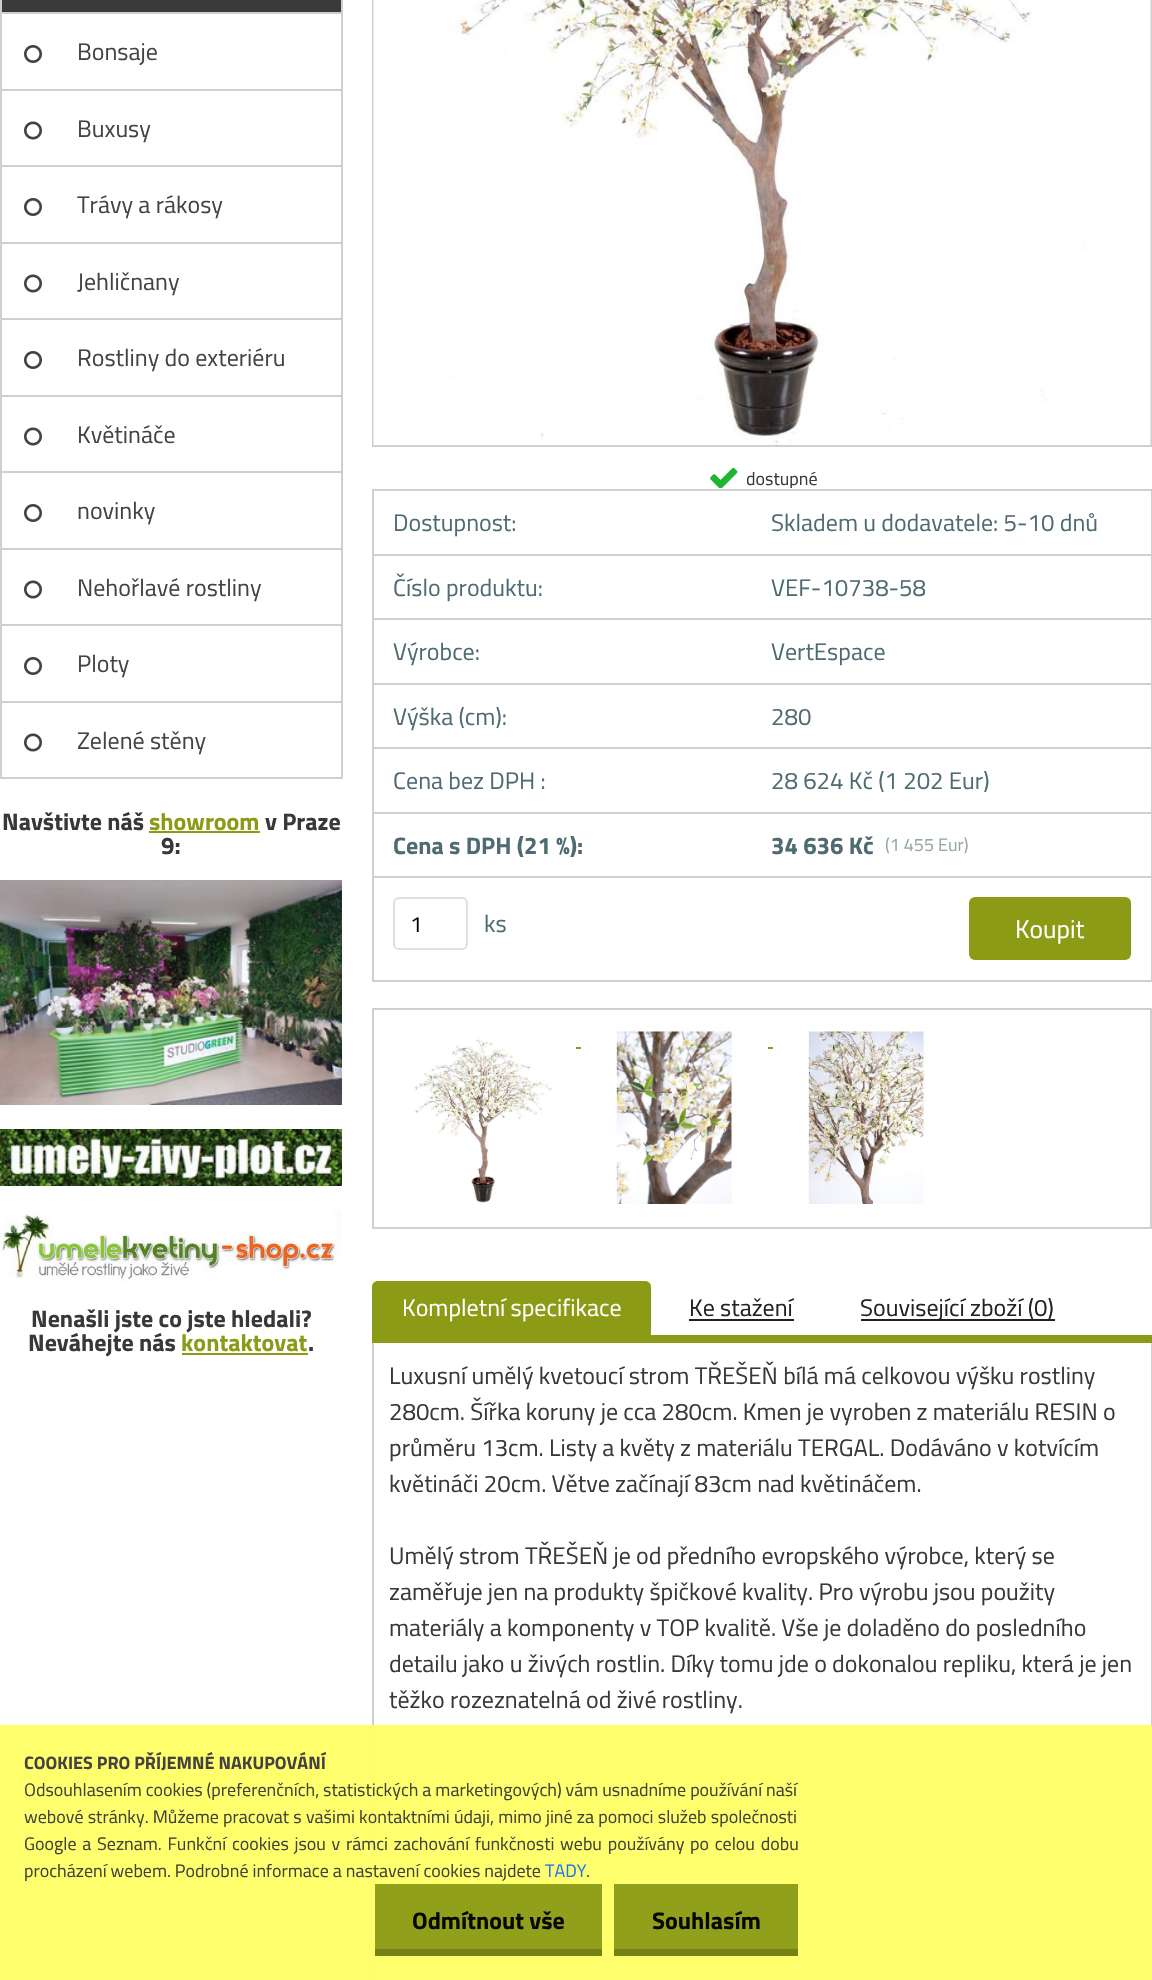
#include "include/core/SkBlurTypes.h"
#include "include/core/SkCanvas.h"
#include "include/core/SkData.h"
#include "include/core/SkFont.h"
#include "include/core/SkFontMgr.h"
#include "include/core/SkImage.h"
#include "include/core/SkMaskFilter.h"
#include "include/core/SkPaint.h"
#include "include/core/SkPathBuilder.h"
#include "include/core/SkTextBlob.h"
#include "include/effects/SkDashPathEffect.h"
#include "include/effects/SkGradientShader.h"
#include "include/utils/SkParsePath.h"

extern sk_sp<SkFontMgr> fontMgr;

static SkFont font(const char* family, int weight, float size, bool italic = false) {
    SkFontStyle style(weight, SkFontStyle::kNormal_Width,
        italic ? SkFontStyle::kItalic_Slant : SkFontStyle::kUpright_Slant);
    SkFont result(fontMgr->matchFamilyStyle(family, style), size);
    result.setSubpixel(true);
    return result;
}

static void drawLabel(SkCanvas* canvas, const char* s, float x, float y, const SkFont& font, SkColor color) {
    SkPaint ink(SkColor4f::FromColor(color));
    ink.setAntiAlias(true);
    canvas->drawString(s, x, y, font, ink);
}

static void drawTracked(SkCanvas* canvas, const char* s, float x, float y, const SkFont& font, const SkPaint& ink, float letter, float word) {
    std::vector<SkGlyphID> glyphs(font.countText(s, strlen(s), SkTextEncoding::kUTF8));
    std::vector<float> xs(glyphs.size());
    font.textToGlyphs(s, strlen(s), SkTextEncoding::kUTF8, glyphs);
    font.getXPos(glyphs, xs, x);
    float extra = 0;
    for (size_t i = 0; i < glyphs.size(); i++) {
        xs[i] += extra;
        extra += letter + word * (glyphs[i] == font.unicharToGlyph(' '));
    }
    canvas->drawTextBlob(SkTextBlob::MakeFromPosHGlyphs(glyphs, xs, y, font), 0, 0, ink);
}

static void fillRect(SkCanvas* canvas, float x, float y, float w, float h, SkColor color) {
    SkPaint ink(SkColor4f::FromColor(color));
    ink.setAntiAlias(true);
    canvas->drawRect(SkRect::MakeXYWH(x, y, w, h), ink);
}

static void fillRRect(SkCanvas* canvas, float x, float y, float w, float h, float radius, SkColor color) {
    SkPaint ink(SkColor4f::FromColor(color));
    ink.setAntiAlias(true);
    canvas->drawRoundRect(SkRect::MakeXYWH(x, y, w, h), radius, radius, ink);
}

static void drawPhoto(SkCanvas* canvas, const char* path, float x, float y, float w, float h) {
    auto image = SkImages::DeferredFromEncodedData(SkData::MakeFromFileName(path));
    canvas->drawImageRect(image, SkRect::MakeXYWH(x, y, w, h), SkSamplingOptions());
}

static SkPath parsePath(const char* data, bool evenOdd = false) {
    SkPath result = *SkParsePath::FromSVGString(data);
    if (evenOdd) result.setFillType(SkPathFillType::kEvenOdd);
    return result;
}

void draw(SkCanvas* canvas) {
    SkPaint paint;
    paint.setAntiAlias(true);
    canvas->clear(0xFFFFFFFF);
    fillRect(canvas, 0, 1725, 1151, 255, 0xFFFFFF6E);
    fillRect(canvas, 2, 0, 339, 12, 0xFF3A3A3A);
    fillRect(canvas, 341, 0, 2, 90, 0xFFCFCFCF);
    fillRect(canvas, 0, 12, 342, 2, 0xFFCFCFCF);
    fillRect(canvas, 0, 0, 2, 14, 0xFFCFCFCF);
    fillRect(canvas, 0, 89, 342, 2, 0xFFCFCFCF);
    fillRect(canvas, 0, 14, 2, 76, 0xFFCFCFCF);
    drawPhoto(canvas, "assets/img1.png", 24, 45, 18, 18);
    SkFont font1 = font("Titillium Web", 400, 24);
    drawLabel(canvas, "Bonsaje", 77, 60, font1, 0xFF454242);
    fillRect(canvas, 341, 90, 2, 153, 0xFFCFCFCF);
    fillRect(canvas, 0, 165, 342, 2, 0xFFCFCFCF);
    fillRect(canvas, 0, 90, 2, 77, 0xFFCFCFCF);
    drawPhoto(canvas, "assets/img2.png", 24, 121, 18, 19);
    drawLabel(canvas, "Buxusy", 77, 137, font1, 0xFF454242);
    fillRect(canvas, 0, 242, 342, 2, 0xFFCFCFCF);
    fillRect(canvas, 0, 167, 2, 76, 0xFFCFCFCF);
    drawPhoto(canvas, "assets/img1.png", 24, 198, 18, 18);
    drawLabel(canvas, "Trávy a rákosy", 77, 213, font1, 0xFF454242);
    fillRect(canvas, 341, 243, 2, 153, 0xFFCFCFCF);
    fillRect(canvas, 0, 318, 342, 2, 0xFFCFCFCF);
    fillRect(canvas, 0, 243, 2, 77, 0xFFCFCFCF);
    drawPhoto(canvas, "assets/img2.png", 24, 274, 18, 19);
    drawLabel(canvas, "Jehličnany", 77, 290, font1, 0xFF454242);
    fillRect(canvas, 0, 395, 342, 2, 0xFFCFCFCF);
    fillRect(canvas, 0, 320, 2, 76, 0xFFCFCFCF);
    drawPhoto(canvas, "assets/img1.png", 24, 351, 18, 18);
    drawLabel(canvas, "Rostliny do exteriéru", 77, 366, font1, 0xFF454242);
    fillRect(canvas, 341, 396, 2, 153, 0xFFCFCFCF);
    fillRect(canvas, 0, 471, 342, 2, 0xFFCFCFCF);
    fillRect(canvas, 0, 396, 2, 77, 0xFFCFCFCF);
    drawPhoto(canvas, "assets/img2.png", 24, 427, 18, 19);
    drawLabel(canvas, "Květináče", 77, 443, font1, 0xFF454242);
    fillRect(canvas, 0, 548, 342, 2, 0xFFCFCFCF);
    fillRect(canvas, 0, 473, 2, 76, 0xFFCFCFCF);
    drawPhoto(canvas, "assets/img1.png", 24, 504, 18, 18);
    drawLabel(canvas, "novinky", 77, 519, font1, 0xFF454242);
    fillRect(canvas, 341, 549, 2, 153, 0xFFCFCFCF);
    fillRect(canvas, 0, 624, 342, 2, 0xFFCFCFCF);
    fillRect(canvas, 0, 549, 2, 77, 0xFFCFCFCF);
    drawPhoto(canvas, "assets/img2.png", 24, 580, 18, 19);
    drawLabel(canvas, "Nehořlavé rostliny", 77, 596, font1, 0xFF454242);
    fillRect(canvas, 0, 701, 342, 2, 0xFFCFCFCF);
    fillRect(canvas, 0, 626, 2, 76, 0xFFCFCFCF);
    drawPhoto(canvas, "assets/img1.png", 24, 657, 18, 18);
    drawLabel(canvas, "Ploty", 77, 672, font1, 0xFF454242);
    fillRect(canvas, 341, 702, 2, 77, 0xFFCFCFCF);
    fillRect(canvas, 0, 777, 342, 2, 0xFFCFCFCF);
    fillRect(canvas, 0, 702, 2, 77, 0xFFCFCFCF);
    drawPhoto(canvas, "assets/img2.png", 24, 733, 18, 19);
    drawLabel(canvas, "Zelené stěny", 77, 749, font1, 0xFF454242);
    SkFont font2 = font("Titillium Web", 700, 24);
    drawLabel(canvas, "Navštivte náš", 2, 830, font2, 0xFF383838);
    drawLabel(canvas, "showroom", 149, 830, font2, 0xFF8B9B16);
    fillRect(canvas, 149, 831, 111, 2, 0xFF8B9B16);
    drawLabel(canvas, "v Praze", 265, 830, font2, 0xFF383838);
    drawLabel(canvas, "9:", 161, 854, font2, 0xFF383838);
    drawPhoto(canvas, "assets/img3.png", 0, 880, 342, 225);
    drawPhoto(canvas, "assets/img4.png", 0, 1129, 342, 57);
    drawPhoto(canvas, "assets/img5.png", 0, 1210, 342, 72);
    drawLabel(canvas, "Nenašli jste co jste hledali?", 31, 1327, font2, 0xFF383838);
    drawLabel(canvas, "Neváhejte nás", 28, 1351, font2, 0xFF383838);
    drawLabel(canvas, "kontaktovat", 181, 1351, font2, 0xFF8B9B16);
    drawLabel(canvas, ".", 308, 1351, font2, 0xFF383838);
    fillRect(canvas, 182, 1353, 126, 2, 0xFF8B9B16);
    paint.setStroke(true);
    paint.setStrokeWidth(2);
    paint.setColor(0xFFCFCFCF);
    canvas->drawRect(SkRect::MakeXYWH(373, -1, 778, 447), paint);
    drawPhoto(canvas, "assets/img6.png", 373, 0, 778, 445);
    drawPhoto(canvas, "assets/img7.png", 710, 467, 28, 21);
    SkFont font3 = font("Titillium Web", 400, 18);
    drawLabel(canvas, "dostupné", 746, 485, font3, 0xFF383838);
    paint.setColor(0xFFFFFFFF);
    canvas->drawRect(SkRect::MakeXYWH(372, 489, 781, 493), paint);
    fillRect(canvas, 372, 489, 780, 2, 0xFFCFCFCF);
    fillRect(canvas, 1151, 489, 1, 492, 0xFFCFCFCF);
    fillRect(canvas, 372, 980, 780, 2, 0xFFCFCFCF);
    fillRect(canvas, 372, 489, 2, 492, 0xFFCFCFCF);
    drawLabel(canvas, "Dostupnost:", 393, 531, font1, 0xFF4F6B72);
    drawLabel(canvas, "Skladem u dodavatele: 5-10 dnů", 771, 531, font1, 0xFF4F6B72);
    fillRect(canvas, 372, 554, 780, 2, 0xFFCFCFCF);
    drawLabel(canvas, "Číslo produktu:", 393, 596, font1, 0xFF4F6B72);
    drawLabel(canvas, "VEF-10738-58", 771, 596, font1, 0xFF4F6B72);
    fillRect(canvas, 372, 618, 780, 2, 0xFFCFCFCF);
    drawLabel(canvas, "Výrobce:", 393, 660, font1, 0xFF4F6B72);
    drawLabel(canvas, "VertEspace", 771, 660, font1, 0xFF4F6B72);
    fillRect(canvas, 372, 683, 780, 2, 0xFFCFCFCF);
    drawLabel(canvas, "Výška (cm):", 393, 725, font1, 0xFF4F6B72);
    drawLabel(canvas, "280", 771, 725, font1, 0xFF4F6B72);
    fillRect(canvas, 372, 747, 780, 2, 0xFFCFCFCF);
    drawLabel(canvas, "Cena bez DPH :", 393, 789, font1, 0xFF4F6B72);
    drawLabel(canvas, "28 624 Kč (1 202 Eur)", 771, 789, font1, 0xFF4F6B72);
    fillRect(canvas, 372, 812, 780, 2, 0xFFCFCFCF);
    drawLabel(canvas, "Cena s DPH (21 %):", 393, 854, font2, 0xFF4F6B72);
    drawLabel(canvas, "34 636 Kč", 771, 854, font2, 0xFF4F6B72);
    drawLabel(canvas, "(1 455 Eur)", 885, 851, font3, 0xFF95A6AA);
    fillRect(canvas, 372, 876, 780, 2, 0xFFCFCFCF);
    paint.setColor(0xFFDFDFDF);
    canvas->drawRoundRect(SkRect::MakeXYWH(394, 898, 73, 51), 5, 5, paint);
    SkFont font4 = font("Titillium Web", 400, 22);
    drawLabel(canvas, "1", 410, 932, font4, 0xFF000000);
    drawLabel(canvas, "ks", 484, 932, font1, 0xFF4F6B72);
    fillRRect(canvas, 969, 897, 162, 63, 6, 0xFF8B9B16);
    SkFont font5 = font("Titillium Web", 400, 25.5f);
    drawLabel(canvas, "Koupit", 1015, 938, font5, 0xFFFFFFFF);
    paint.setColor(0xFFCFCFCF);
    canvas->drawRect(SkRect::MakeXYWH(373, 1009, 778, 219), paint);
    drawPhoto(canvas, "assets/img8.png", 410, 1037, 142, 167);
    fillRect(canvas, 576, 1047, 5, 2, 0xFF8B9B16);
    drawPhoto(canvas, "assets/img9.png", 616, 1031, 118, 173);
    fillRect(canvas, 768, 1047, 5, 2, 0xFF8B9B16);
    drawPhoto(canvas, "assets/img10.png", 808, 1031, 117, 173);
    fillRect(canvas, 372, 1335, 780, 8, 0xFF8B9B16);
    paint.setStroke(false);
    paint.setColor(0xFF8B9B16);
    canvas->drawPath(parsePath("M378 1281H645C648.5 1281 651 1283.5 651 1287V1335H372V1287C372 1283.5 374.5 1281 378 1281Z"), paint);
    drawLabel(canvas, "Kompletní specifikace", 402, 1316, font1, 0xFFFFFFFF);
    drawLabel(canvas, "Ke stažení", 689, 1316, font1, 0xFF222222);
    fillRect(canvas, 689, 1319, 105, 2, 0xFF222222);
    fillRect(canvas, 861, 1319, 194, 2, 0xFF222222);
    drawLabel(canvas, "Související zboží (0)", 860, 1316, font1, 0xFF222222);
    fillRect(canvas, 1151, 1343, 1, 382, 0xFFCFCFCF);
    fillRect(canvas, 1151, 1725, 1, 255, 0xFFFDFD6B);
    fillRect(canvas, 372, 1343, 2, 382, 0xFFCFCFCF);
    fillRect(canvas, 372, 1725, 2, 255, 0xFFFDFD6B);
    drawLabel(canvas, "Luxusní umělý kvetoucí strom TŘEŠEŇ bílá má celkovou výšku rostliny", 389, 1384, font1, 0xFF383838);
    drawLabel(canvas, "280cm. Šířka koruny je cca 280cm. Kmen je vyroben z materiálu RESIN o", 389, 1420, font1, 0xFF383838);
    drawLabel(canvas, "průměru 13cm. Listy a květy z materiálu TERGAL. Dodáváno v kotvícím", 389, 1456, font1, 0xFF383838);
    drawLabel(canvas, "květináči 20cm. Větve začínají 83cm nad květináčem.", 389, 1492, font1, 0xFF383838);
    drawLabel(canvas, "Umělý strom TŘEŠEŇ je od předního evropského výrobce, který se", 389, 1564, font1, 0xFF383838);
    drawLabel(canvas, "zaměřuje jen na produkty špičkové kvality. Pro výrobu jsou použity", 389, 1600, font1, 0xFF383838);
    drawLabel(canvas, "materiály a komponenty v TOP kvalitě. Vše je doladěno do posledního", 389, 1636, font1, 0xFF383838);
    drawLabel(canvas, "detailu jako u živých rostlin. Díky tomu jde o dokonalou repliku, která je jen", 389, 1672, font1, 0xFF383838);
    drawLabel(canvas, "těžko rozeznatelná od živé rostliny.", 389, 1708, font1, 0xFF383838);
    SkFont font6 = font("Titillium Web", 700, 18);
    drawLabel(canvas, "COOKIES PRO PŘÍJEMNÉ NAKUPOVÁNÍ", 24, 1769, font6, 0xFF454242);
    drawLabel(canvas, "Odsouhlasením cookies (preferenčních, statistických a marketingových) vám usnadníme používání naší", 24, 1796, font3, 0xFF42423B);
    paint.setColor(0xFF42423B);
    drawTracked(canvas, "webové stránky. Můžeme pracovat s vašimi kontaktními údaji, mimo jiné za pomoci služeb společnosti", 24, 1823, font3, paint, 0, 0.25f);
    drawTracked(canvas, "Google a Seznam. Funkční cookies jsou v rámci zachování funkčnosti webu používány po celou dobu", 24, 1850, font3, paint, 0, 1.75f);
    drawLabel(canvas, "procházení webem. Podrobné informace a nastavení cookies najdete", 24, 1877, font3, 0xFF42423B);
    drawLabel(canvas, "TADY", 545, 1877, font3, 0xFF1975F6);
    drawLabel(canvas, ".", 586, 1877, font3, 0xFF454242);
    fillRect(canvas, 375, 1884, 227, 65, 0xF28B9B16);
    fillRect(canvas, 375, 1949, 227, 7, 0xFF758115);
    drawLabel(canvas, "Odmítnout vše", 412, 1929, font2, 0xFF070801);
    fillRect(canvas, 614, 1884, 184, 65, 0xF28B9B16);
    fillRect(canvas, 614, 1949, 184, 7, 0xFF758115);
    drawLabel(canvas, "Souhlasím", 652, 1929, font2, 0xFF070801);
}
